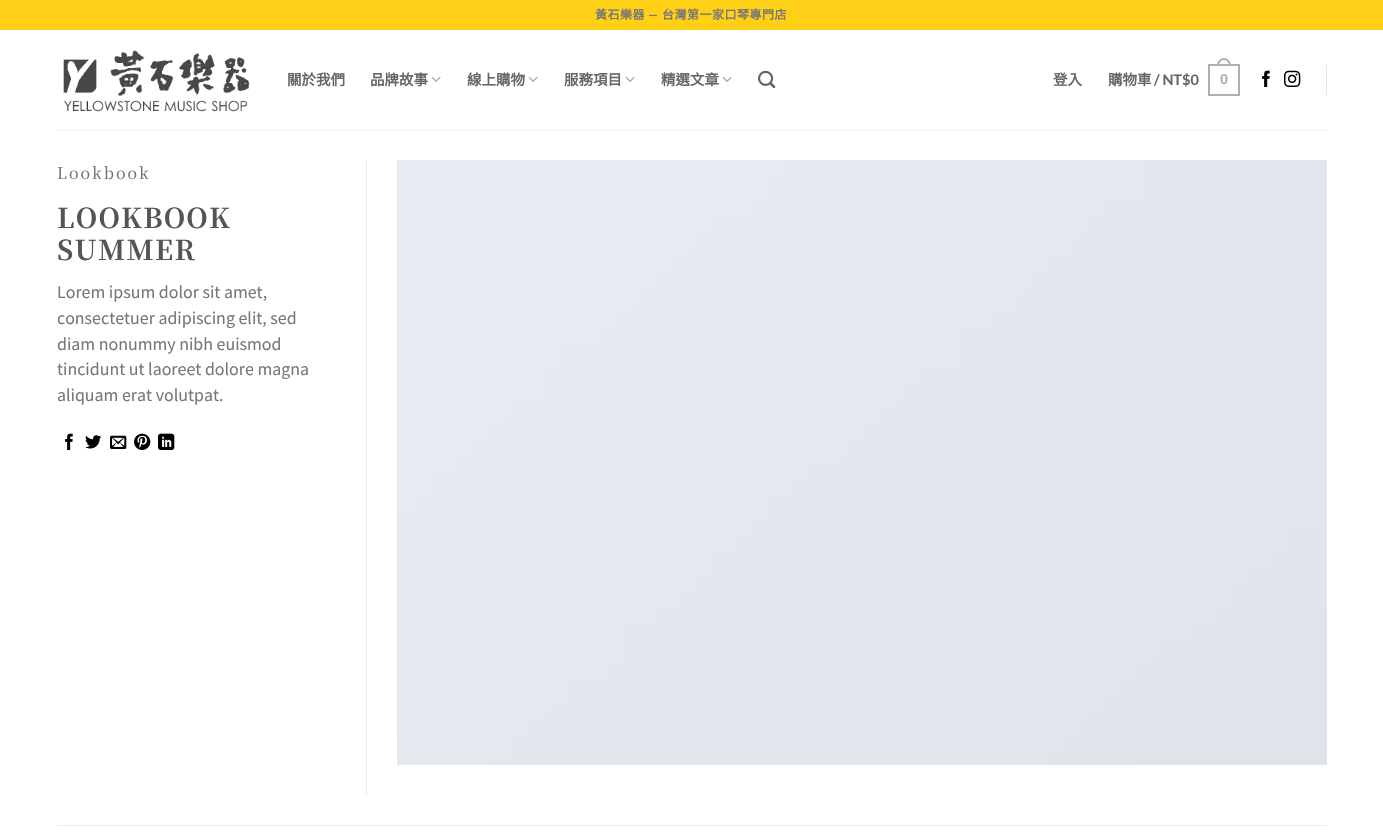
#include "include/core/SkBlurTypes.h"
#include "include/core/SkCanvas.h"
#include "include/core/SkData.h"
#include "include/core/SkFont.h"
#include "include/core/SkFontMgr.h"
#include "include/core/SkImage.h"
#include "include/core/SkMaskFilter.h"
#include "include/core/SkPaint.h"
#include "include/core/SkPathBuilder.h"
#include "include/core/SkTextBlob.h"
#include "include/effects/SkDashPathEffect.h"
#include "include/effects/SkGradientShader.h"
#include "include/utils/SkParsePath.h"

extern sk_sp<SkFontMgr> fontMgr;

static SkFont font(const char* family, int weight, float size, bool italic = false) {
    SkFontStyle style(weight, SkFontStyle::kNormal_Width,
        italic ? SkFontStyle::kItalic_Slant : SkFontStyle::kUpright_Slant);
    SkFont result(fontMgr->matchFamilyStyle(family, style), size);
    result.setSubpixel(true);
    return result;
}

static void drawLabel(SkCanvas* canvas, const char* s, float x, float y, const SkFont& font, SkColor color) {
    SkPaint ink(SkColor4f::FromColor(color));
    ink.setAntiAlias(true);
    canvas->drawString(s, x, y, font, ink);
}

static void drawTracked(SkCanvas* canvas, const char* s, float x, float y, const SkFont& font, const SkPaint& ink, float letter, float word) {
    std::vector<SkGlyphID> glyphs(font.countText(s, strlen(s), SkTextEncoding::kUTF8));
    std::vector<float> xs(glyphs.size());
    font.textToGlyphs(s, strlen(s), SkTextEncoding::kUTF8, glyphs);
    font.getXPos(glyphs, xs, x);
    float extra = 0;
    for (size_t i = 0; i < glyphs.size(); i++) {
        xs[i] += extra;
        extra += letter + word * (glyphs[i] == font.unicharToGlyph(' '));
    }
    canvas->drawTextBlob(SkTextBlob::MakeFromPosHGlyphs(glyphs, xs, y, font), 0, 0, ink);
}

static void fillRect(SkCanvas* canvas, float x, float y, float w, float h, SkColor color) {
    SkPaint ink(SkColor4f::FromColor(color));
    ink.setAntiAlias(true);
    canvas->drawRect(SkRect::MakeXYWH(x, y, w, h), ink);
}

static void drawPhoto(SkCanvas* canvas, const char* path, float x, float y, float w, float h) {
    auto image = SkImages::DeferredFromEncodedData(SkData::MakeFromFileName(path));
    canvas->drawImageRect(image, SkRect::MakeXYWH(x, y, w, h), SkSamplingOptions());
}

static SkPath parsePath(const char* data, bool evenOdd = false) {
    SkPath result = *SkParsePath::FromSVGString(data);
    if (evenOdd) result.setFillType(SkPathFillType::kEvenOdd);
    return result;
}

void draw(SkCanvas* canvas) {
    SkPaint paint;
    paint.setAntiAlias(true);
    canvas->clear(0xFFFFFFFF);
    fillRect(canvas, 0, 0, 1383, 30, 0xFFFFD016);
    SkFont font1 = font("Noto Sans CJK TC", 700, 12);
    paint.setColor(0xFF777777);
    drawTracked(canvas, "黃石樂器", 595, 19, font1, paint, 0.5f, 0);
    SkFont font2 = font("Lato", 700, 12);
    drawTracked(canvas, "—", 648, 19, font2, paint, 0.5f, 0);
    drawTracked(canvas, "台灣第一家口琴專門店", 662, 19, font1, paint, 0.5f, 0);
    drawPhoto(canvas, "assets/img1.png", 63, 50, 187, 62);
    SkFont font3 = font("Noto Sans CJK TC", 700, 14.5f);
    drawLabel(canvas, "關於我們", 287, 85, font3, 0xFF656565);
    drawLabel(canvas, "品牌故事", 370, 85, font3, 0xFF656565);
    drawPhoto(canvas, "assets/img2.png", 431, 76, 10, 6);
    drawLabel(canvas, "線上購物", 467, 85, font3, 0xFF656565);
    drawPhoto(canvas, "assets/img2.png", 528, 76, 10, 6);
    drawLabel(canvas, "服務項目", 564, 85, font3, 0xFF656565);
    drawPhoto(canvas, "assets/img2.png", 625, 76, 10, 6);
    drawLabel(canvas, "精選文章", 661, 85, font3, 0xFF656565);
    drawPhoto(canvas, "assets/img2.png", 722, 76, 10, 6);
    drawPhoto(canvas, "assets/img3.png", 758, 70, 18, 18);
    drawLabel(canvas, "登入", 1053, 85, font3, 0xFF656565);
    drawLabel(canvas, "購物車", 1108, 85, font3, 0xFF656565);
    SkFont font4 = font("Lato", 700, 14.5f);
    drawLabel(canvas, "/ NT$0", 1154, 85, font4, 0xFF656565);
    paint.setStroke(true);
    paint.setStrokeWidth(2);
    paint.setColor(0xFFB0B0B0);
    canvas->drawRect(SkRect::MakeXYWH(1209, 65, 30, 30), paint);
    paint.setStroke(false);
    canvas->drawPath(parsePath("M1224 58C1228.5 58 1231 62 1231 66H1217C1217 62 1219.5 58 1224 58ZM1224 60C1227.5 60 1229 63 1229 66H1219C1219 63 1220.5 60 1224 60Z", true), paint);
    SkFont font5 = font("Liberation Sans", 700, 14.5f);
    drawLabel(canvas, "0", 1220, 84, font5, 0xFFB0B0B0);
    drawPhoto(canvas, "assets/img4.png", 1262, 70, 8, 17);
    drawPhoto(canvas, "assets/img5.png", 1284, 70, 17, 17);
    fillRect(canvas, 1326, 65, 1, 30, 0xFFE6E6E6);
    fillRect(canvas, 57, 130, 1270, 1, 0xFFF1F1F1);
    fillRect(canvas, 366, 160, 1, 635, 0xFFECECEC);
    SkFont font6 = font("Noto Serif TC", 400, 16);
    paint.setColor(0xFF6E6E6E);
    drawTracked(canvas, "Lookbook", 57, 179, font6, paint, 2, 0);
    SkFont font7 = font("Noto Serif TC", 700, 27.25f);
    paint.setColor(0xFF555555);
    drawTracked(canvas, "LOOKBOOK", 57, 228, font7, paint, 1.25f, 0);
    drawTracked(canvas, "SUMMER", 57, 260, font7, paint, 1.25f, 0);
    SkFont font8 = font("Noto Sans TC", 100, 16);
    drawLabel(canvas, "Lorem ipsum dolor sit amet,", 57, 298, font8, 0xFF777777);
    drawLabel(canvas, "consectetuer adipiscing elit, sed", 57, 324, font8, 0xFF777777);
    drawLabel(canvas, "diam nonummy nibh euismod", 57, 350, font8, 0xFF777777);
    drawLabel(canvas, "tincidunt ut laoreet dolore magna", 57, 375, font8, 0xFF777777);
    drawLabel(canvas, "aliquam erat volutpat.", 57, 401, font8, 0xFF777777);
    drawPhoto(canvas, "assets/img4.png", 65, 433, 8, 17);
    drawPhoto(canvas, "assets/img6.png", 85, 435, 17, 14);
    drawPhoto(canvas, "assets/img7.png", 110, 435, 17, 14);
    drawPhoto(canvas, "assets/img8.png", 134, 433, 17, 17);
    drawPhoto(canvas, "assets/img9.png", 158, 433, 17, 17);
    drawPhoto(canvas, "assets/img10.png", 397, 160, 930, 605);
    fillRect(canvas, 57, 825, 1270, 1, 0xFFECECEC);
}
